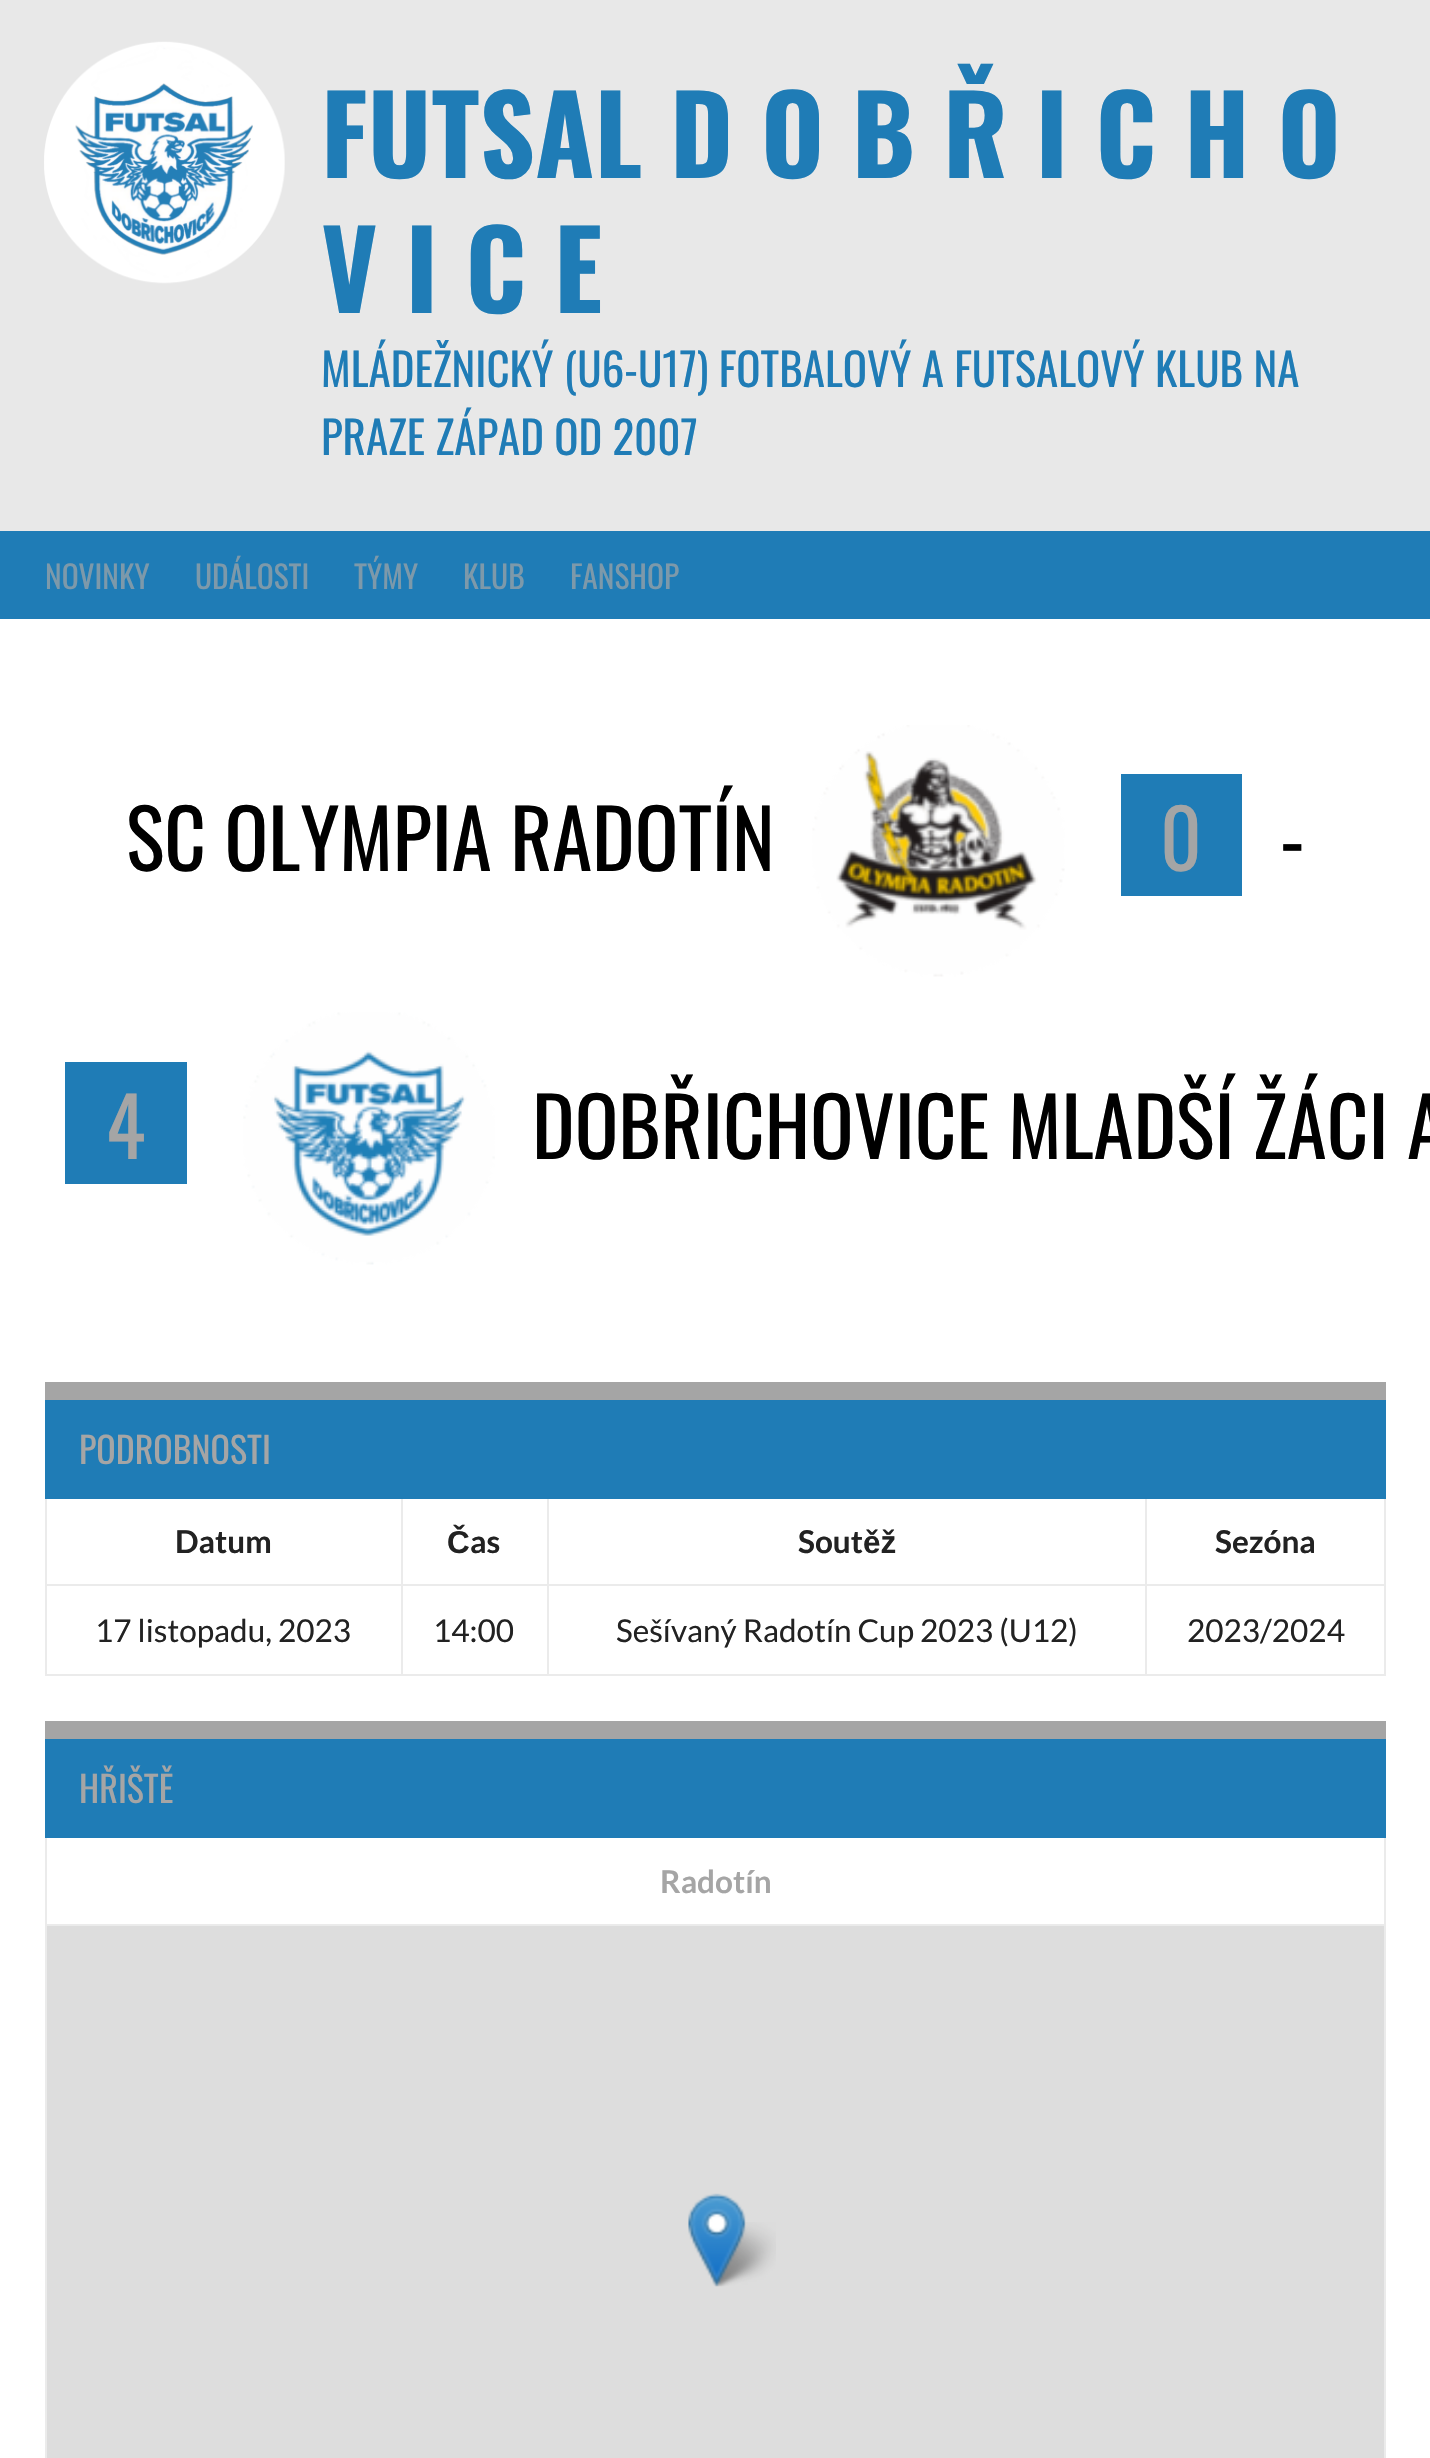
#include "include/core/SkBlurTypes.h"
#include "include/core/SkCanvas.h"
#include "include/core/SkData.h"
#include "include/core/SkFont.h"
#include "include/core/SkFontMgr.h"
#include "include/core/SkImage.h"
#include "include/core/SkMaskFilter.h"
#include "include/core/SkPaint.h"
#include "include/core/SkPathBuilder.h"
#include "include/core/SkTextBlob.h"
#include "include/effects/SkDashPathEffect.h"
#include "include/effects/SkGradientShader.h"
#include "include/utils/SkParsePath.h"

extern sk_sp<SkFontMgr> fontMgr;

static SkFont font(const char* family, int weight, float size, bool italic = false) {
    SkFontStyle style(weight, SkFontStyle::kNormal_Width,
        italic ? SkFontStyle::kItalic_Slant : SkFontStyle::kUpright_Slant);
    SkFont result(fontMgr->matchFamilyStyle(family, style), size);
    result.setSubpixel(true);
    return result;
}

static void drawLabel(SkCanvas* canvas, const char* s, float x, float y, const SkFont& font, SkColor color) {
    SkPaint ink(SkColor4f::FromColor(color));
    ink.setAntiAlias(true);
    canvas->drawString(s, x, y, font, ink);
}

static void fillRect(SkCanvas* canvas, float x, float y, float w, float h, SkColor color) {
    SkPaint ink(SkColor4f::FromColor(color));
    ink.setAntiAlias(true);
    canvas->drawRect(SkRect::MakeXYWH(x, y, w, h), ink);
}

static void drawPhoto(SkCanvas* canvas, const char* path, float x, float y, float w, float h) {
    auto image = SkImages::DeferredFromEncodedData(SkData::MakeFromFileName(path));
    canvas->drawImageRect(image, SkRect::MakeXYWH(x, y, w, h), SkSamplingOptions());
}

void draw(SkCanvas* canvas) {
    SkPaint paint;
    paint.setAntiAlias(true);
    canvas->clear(0xFFE8E8E8);
    drawPhoto(canvas, "assets/img1.png", 44, 41, 241, 243);
    SkFont font1 = font("Oswald", 700, 108);
    drawLabel(canvas, "FUTSAL D O B Ř I C H O", 321, 178, font1, 0xFF1F7CB6);
    drawLabel(canvas, "V I C E", 321, 313, font1, 0xFF1F7CB6);
    SkFont font2 = font("Oswald", 400, 45);
    drawLabel(canvas, "MLÁDEŽNICKÝ (U6-U17) FOTBALOVÝ A FUTSALOVÝ KLUB NA", 321, 387, font2, 0xFF1F7CB6);
    drawLabel(canvas, "PRAZE ZÁPAD OD 2007", 321, 455, font2, 0xFF1F7CB6);
    fillRect(canvas, 0, 531, 1430, 88, 0xFF1F7CB6);
    SkFont font3 = font("Oswald", 400, 31.5f);
    drawLabel(canvas, "NOVINKY", 45, 589, font3, 0xFF7D99AA);
    drawLabel(canvas, "UDÁLOSTI", 195, 589, font3, 0xFF7D99AA);
    drawLabel(canvas, "TÝMY", 354, 589, font3, 0xFF7D99AA);
    drawLabel(canvas, "KLUB", 463, 589, font3, 0xFF7D99AA);
    drawLabel(canvas, "FANSHOP", 570, 589, font3, 0xFF7D99AA);
    fillRect(canvas, 0, 619, 1430, 1839, 0xFFFFFFFF);
    SkFont font4 = font("Oswald", 400, 81);
    drawLabel(canvas, "SC OLYMPIA RADOTÍN", 126, 871, font4, 0xFF000000);
    drawPhoto(canvas, "assets/img2.png", 812, 725, 253, 252);
    fillRect(canvas, 1121, 774, 121, 122, 0xFF1F7CB6);
    drawLabel(canvas, "0", 1160, 871, font4, 0xFFA5A5A5);
    drawLabel(canvas, "-", 1280, 871, font4, 0xFF000000);
    fillRect(canvas, 65, 1062, 122, 122, 0xFF1F7CB6);
    drawLabel(canvas, "4", 106, 1159, font4, 0xFFA5A5A5);
    drawPhoto(canvas, "assets/img3.png", 243, 1012, 252, 253);
    drawLabel(canvas, "DOBŘICHOVICE MLADŠÍ ŽÁCI A", 532, 1159, font4, 0xFF000000);
    fillRect(canvas, 1384, 1496, 2, 180, 0xFFEBEBEB);
    fillRect(canvas, 45, 1674, 1341, 2, 0xFFEBEBEB);
    fillRect(canvas, 45, 1496, 2, 180, 0xFFEBEBEB);
    fillRect(canvas, 1145, 1584, 241, 2, 0xFFEBEBEB);
    fillRect(canvas, 1145, 1584, 2, 92, 0xFFEBEBEB);
    fillRect(canvas, 547, 1584, 601, 2, 0xFFEBEBEB);
    fillRect(canvas, 547, 1584, 2, 92, 0xFFEBEBEB);
    fillRect(canvas, 401, 1584, 148, 2, 0xFFEBEBEB);
    fillRect(canvas, 401, 1584, 2, 92, 0xFFEBEBEB);
    fillRect(canvas, 45, 1584, 358, 2, 0xFFEBEBEB);
    fillRect(canvas, 401, 1496, 2, 90, 0xFFEBEBEB);
    fillRect(canvas, 547, 1496, 2, 90, 0xFFEBEBEB);
    fillRect(canvas, 1145, 1496, 2, 90, 0xFFEBEBEB);
    fillRect(canvas, 45, 1400, 1341, 99, 0xFF1F7CB6);
    fillRect(canvas, 45, 1382, 1341, 18, 0xFFA5A5A5);
    SkFont font5 = font("Oswald", 400, 36);
    drawLabel(canvas, "PODROBNOSTI", 79, 1464, font5, 0xFFA5A5A5);
    SkFont font6 = font("Lato", 700, 31.5f);
    drawLabel(canvas, "Datum", 175, 1553, font6, 0xFF222222);
    SkFont font7 = font("Liberation Sans", 700, 31.5f);
    drawLabel(canvas, "Č", 447, 1553, font7, 0xFF222222);
    drawLabel(canvas, "as", 470, 1553, font6, 0xFF222222);
    drawLabel(canvas, "Sout", 798, 1553, font6, 0xFF222222);
    drawLabel(canvas, "ěž", 863, 1553, font7, 0xFF222222);
    drawLabel(canvas, "Sezóna", 1215, 1553, font6, 0xFF222222);
    SkFont font8 = font("Lato", 400, 31.5f);
    drawLabel(canvas, "17 listopadu, 2023", 95, 1642, font8, 0xFF222222);
    drawLabel(canvas, "14:00", 433, 1642, font8, 0xFF222222);
    drawLabel(canvas, "Sešívaný Radotín Cup 2023 (U12)", 616, 1642, font8, 0xFF222222);
    drawLabel(canvas, "2023/2024", 1187, 1642, font8, 0xFF222222);
    fillRect(canvas, 1384, 1836, 2, 622, 0xFFEBEBEB);
    fillRect(canvas, 45, 1836, 2, 622, 0xFFEBEBEB);
    fillRect(canvas, 45, 1739, 1341, 99, 0xFF1F7CB6);
    fillRect(canvas, 45, 1721, 1341, 18, 0xFFA5A5A5);
    drawLabel(canvas, "HŘIŠTĚ", 79, 1803, font5, 0xFFA5A5A5);
    drawLabel(canvas, "Radotín", 660, 1893, font6, 0xFFA5A5A5);
    fillRect(canvas, 45, 1924, 1341, 2, 0xFFEBEBEB);
    fillRect(canvas, 47, 1926, 1337, 532, 0xFFDDDDDD);
    drawPhoto(canvas, "assets/img5.png", 709, 2222, 67, 65);
    drawPhoto(canvas, "assets/img4.png", 688, 2193, 58, 94);
}
